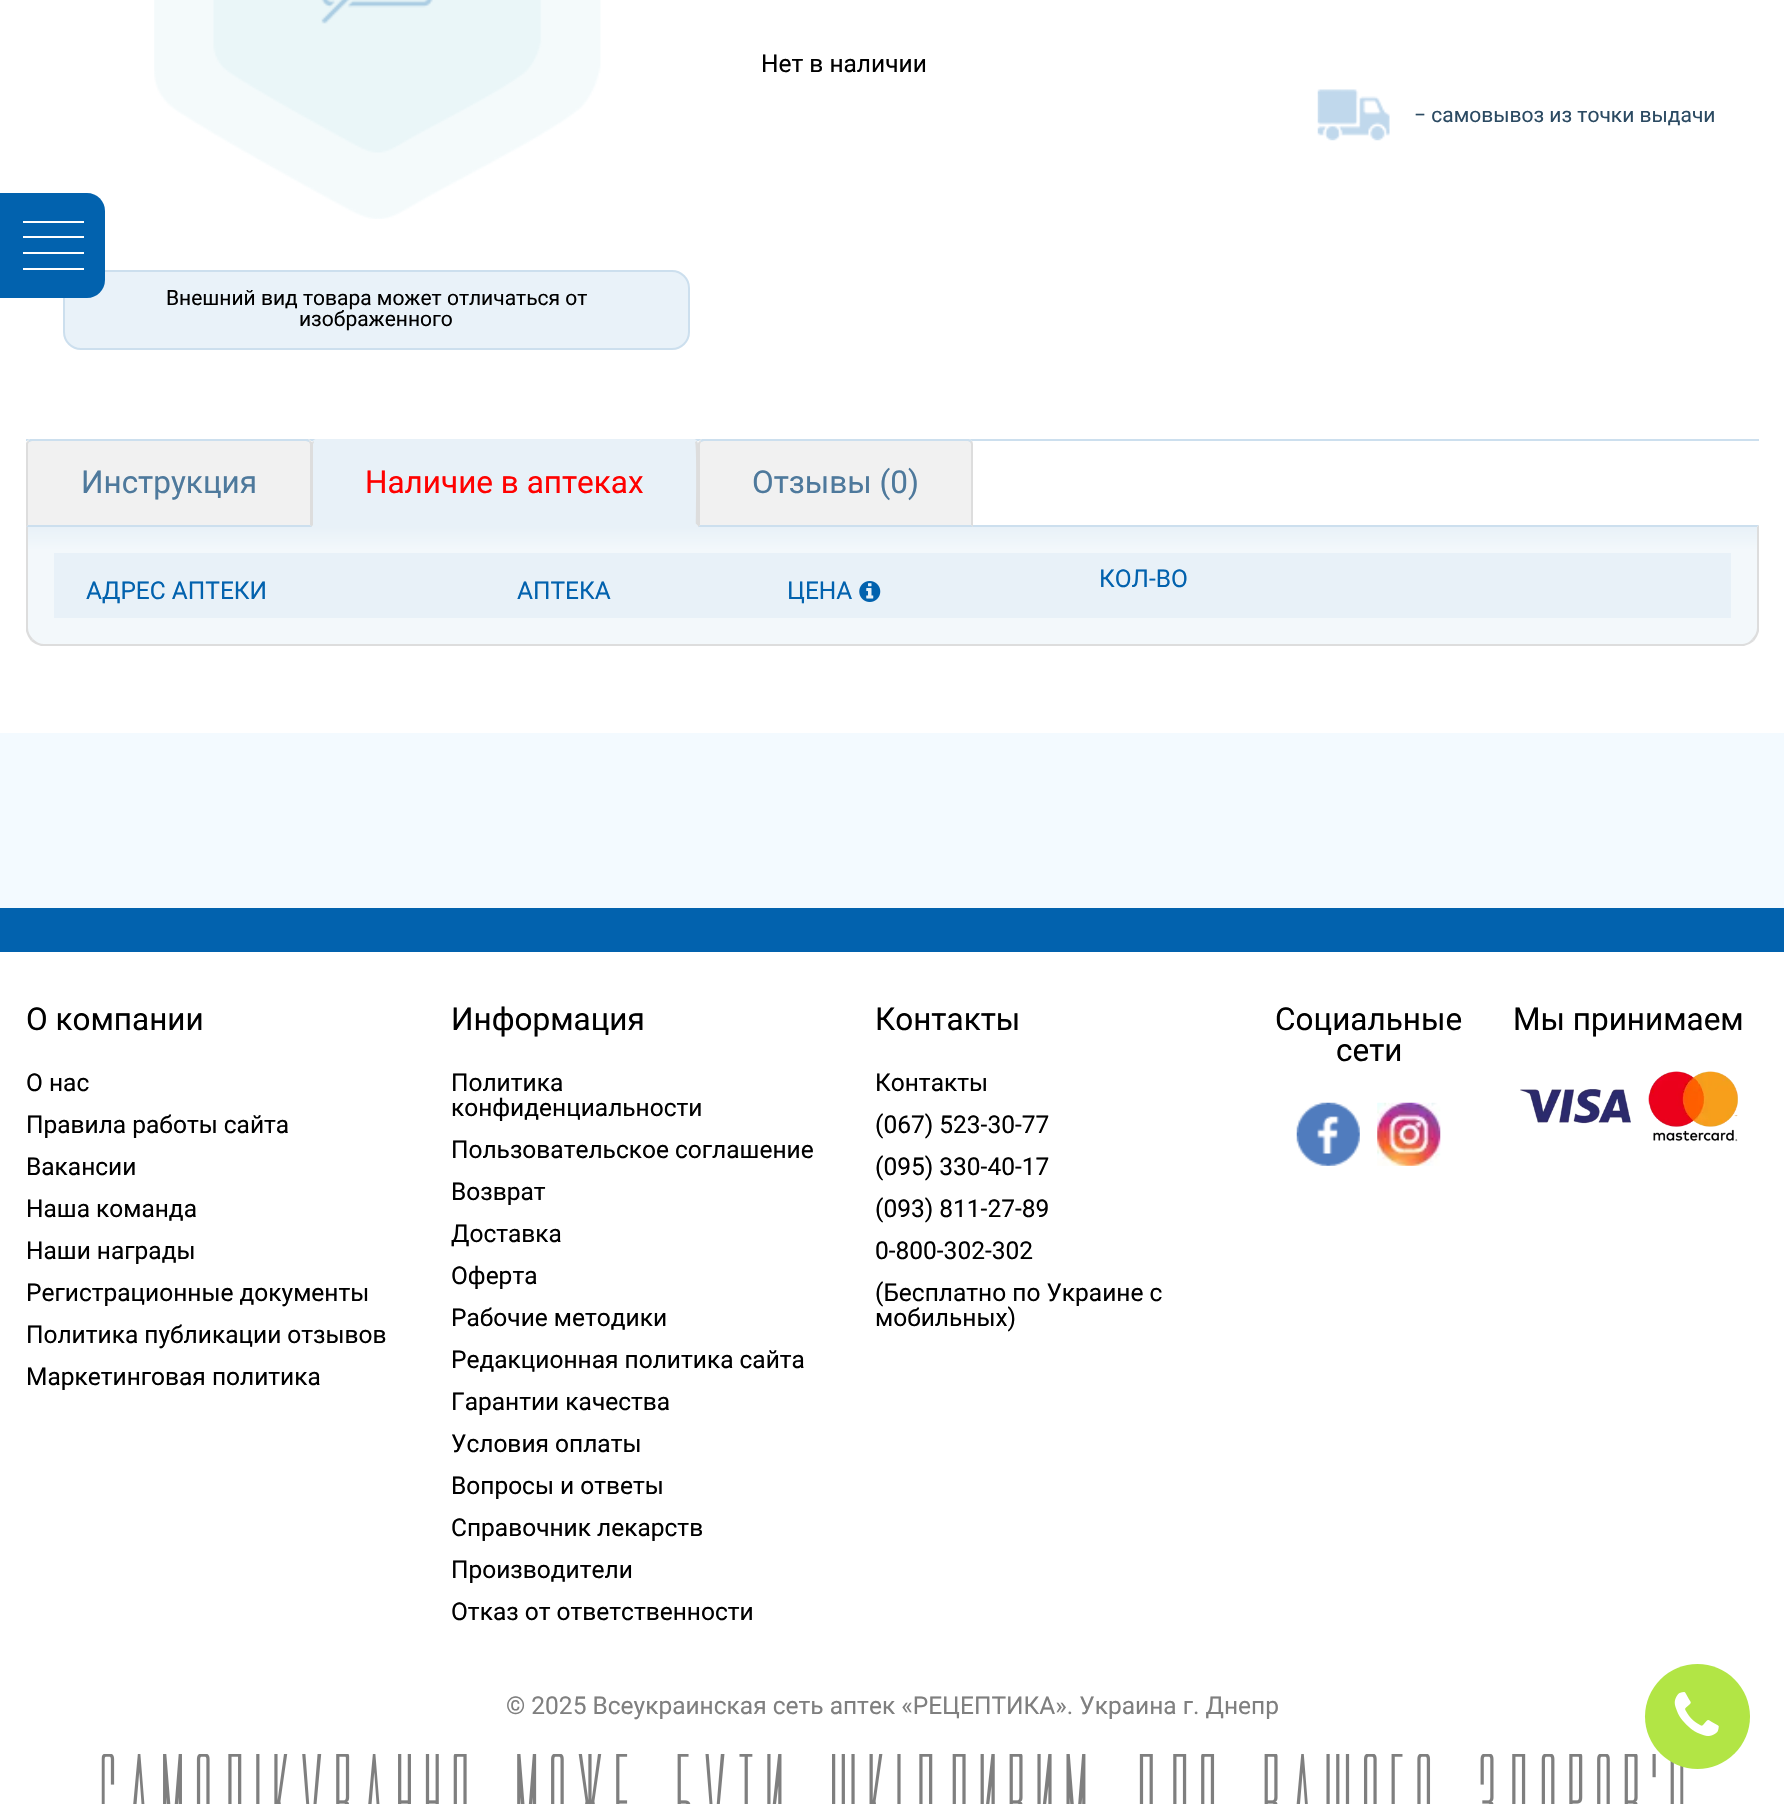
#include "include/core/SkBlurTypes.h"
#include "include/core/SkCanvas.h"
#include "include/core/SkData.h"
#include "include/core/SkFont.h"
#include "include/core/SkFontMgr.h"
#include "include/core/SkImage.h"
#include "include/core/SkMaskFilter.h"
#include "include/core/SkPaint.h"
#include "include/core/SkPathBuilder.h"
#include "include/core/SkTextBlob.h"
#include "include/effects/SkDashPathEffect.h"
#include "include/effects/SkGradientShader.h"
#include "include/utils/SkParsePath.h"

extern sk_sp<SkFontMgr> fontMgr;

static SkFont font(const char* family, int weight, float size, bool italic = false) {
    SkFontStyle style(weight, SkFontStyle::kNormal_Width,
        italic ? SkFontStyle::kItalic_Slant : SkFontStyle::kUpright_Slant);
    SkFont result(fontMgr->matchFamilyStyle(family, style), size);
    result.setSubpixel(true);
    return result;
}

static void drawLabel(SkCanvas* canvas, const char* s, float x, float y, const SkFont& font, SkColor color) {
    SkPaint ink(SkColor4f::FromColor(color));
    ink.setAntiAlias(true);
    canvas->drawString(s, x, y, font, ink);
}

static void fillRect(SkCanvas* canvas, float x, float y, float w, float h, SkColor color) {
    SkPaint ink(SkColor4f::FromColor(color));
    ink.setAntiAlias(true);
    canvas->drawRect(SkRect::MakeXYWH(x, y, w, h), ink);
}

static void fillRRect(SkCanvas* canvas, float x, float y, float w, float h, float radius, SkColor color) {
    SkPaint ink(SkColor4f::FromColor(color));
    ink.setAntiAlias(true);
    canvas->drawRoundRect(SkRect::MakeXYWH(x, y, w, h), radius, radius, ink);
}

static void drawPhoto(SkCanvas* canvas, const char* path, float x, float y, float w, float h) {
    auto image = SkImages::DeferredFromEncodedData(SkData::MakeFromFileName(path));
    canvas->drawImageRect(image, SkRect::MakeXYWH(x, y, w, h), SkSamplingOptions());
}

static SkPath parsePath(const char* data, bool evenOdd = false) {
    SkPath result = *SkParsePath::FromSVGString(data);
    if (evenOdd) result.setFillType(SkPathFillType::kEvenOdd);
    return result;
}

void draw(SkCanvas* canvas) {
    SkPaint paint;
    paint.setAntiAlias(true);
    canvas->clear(0xFFFFFFFF);
    drawPhoto(canvas, "assets/img1.png", 0, 0, 1784, 733);
    fillRRect(canvas, 26, -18, 1733, 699, 18, 0xFFFFFFFF);
    paint.setColor(0xFFE9F2F9);
    canvas->drawRoundRect(SkRect::MakeXYWH(64, 271, 625, 78), 17, 17, paint);
    paint.setStroke(true);
    paint.setStrokeWidth(2);
    paint.setColor(0xFFCCDFEE);
    canvas->drawRoundRect(SkRect::MakeXYWH(64, 271, 625, 78), 17, 17, paint);
    paint.setStroke(false);
    paint.setColor(0xFF0262AE);
    canvas->drawPath(parsePath("M0 193H87C97 193 105 201 105 211V280C105 290 97 298 87 298H0Z"), paint);
    fillRect(canvas, 23, 221, 61, 2, 0xFFFFFFFF);
    fillRect(canvas, 23, 236, 61, 2, 0xFFFFFFFF);
    fillRect(canvas, 23, 252, 61, 2, 0xFFFFFFFF);
    fillRect(canvas, 23, 268, 61, 2, 0xFFFFFFFF);
    SkFont font1 = font("Roboto", 400, 24.5f);
    drawLabel(canvas, "Нет в наличии", 761, 72, font1, 0xFF000000);
    drawPhoto(canvas, "assets/img2.png", 1317, 89, 73, 52);
    SkFont font2 = font("Roboto", 400, 21);
    drawLabel(canvas, "− самовывоз из точки выдачи", 1414, 122, font2, 0xFF2B4A62);
    drawPhoto(canvas, "assets/img3.png", 154, 0, 447, 219);
    drawLabel(canvas, "Внешний вид товара может отличаться от", 166, 305, font2, 0xFF000000);
    drawLabel(canvas, "изображенного", 299, 326, font2, 0xFF000000);
    fillRect(canvas, 26, 439, 1733, 2, 0xFFCCDFEE);
    paint.setColor(0xFFCCDFEE);
    canvas->drawPath(parsePath("M26 525L28 527H1757L1759 525Z"), paint);
    canvas->save();
    canvas->clipPath(parsePath("M26 525H1759V628C1759 638 1751 646 1741 646H44C34 646 26 638 26 628Z"), true);
    {
        const SkColor colors[] = {0xFFE8F1F8, 0xFFF3F8FB, 0xFFF3F8FB};
        const float stops[] = {0, 0.2f, 1};
        const SkPoint ends[] = {{893, 527}, {893, 644}};
        paint.setShader(SkGradientShader::MakeLinear(ends, colors, stops, 3, SkTileMode::kClamp));
        paint.setAlpha(255);
    }
    canvas->drawRect(SkRect::MakeXYWH(26, 527, 1733, 117), paint);
    canvas->restore();
    paint.setShader(nullptr);
    paint.setColor(0xFFDDDDDD);
    canvas->drawPath(parsePath("M1759 525V631C1758 635 1756 638 1754 641L1752 639C1755 636 1757 632 1757 628V527Z"), paint);
    canvas->drawPath(parsePath("M41 646C37 645 34 643 31 641L33 639C36 642 40 644 44 644H1741C1746 644 1750 642 1752 639L1754 641C1751 643 1748 645 1744 646Z"), paint);
    canvas->drawPath(parsePath("M28 527V628C28 632 30 636 33 639L31 641C29 638 27 635 26 631V525Z"), paint);
    paint.setColor(0xFFF1F1F1);
    canvas->drawPath(parsePath("M31 439H307C310 439 312 441 312 444V527H26V444C26 441 28 439 31 439Z"), paint);
    paint.setColor(0xFFCCDFEE);
    canvas->drawPath(parsePath("M32 441L29 442L28 441L30 439H308L310 441L309 442L306 441Z"), paint);
    paint.setColor(0xFFDDDDDD);
    canvas->drawPath(parsePath("M310 441L312 442V527L310 525V444L309 442Z"), paint);
    paint.setColor(0xFFCCDFEE);
    canvas->drawPath(parsePath("M312 527L310 525H28L26 527Z"), paint);
    paint.setColor(0xFFDDDDDD);
    canvas->drawPath(parsePath("M26 527V443L28 441L29 442L28 444V525Z"), paint);
    SkFont font3 = font("Roboto", 400, 31.5f);
    drawLabel(canvas, "Инструкция", 81, 493, font3, 0xFF4E799C);
    paint.setColor(0xFFE8F1F8);
    canvas->drawPath(parsePath("M317 439H693C696 439 698 441 698 444V527H312V444C312 441 314 439 317 439Z"), paint);
    canvas->drawPath(parsePath("M317 441L314 442L313 441L316 439H694L697 441L695 442L693 441Z"), paint);
    paint.setColor(0xFFDDDDDD);
    canvas->drawPath(parsePath("M697 441L698 444V526L696 524C696 516 697 445 695 442Z"), paint);
    paint.setColor(0xFFE8F1F8);
    canvas->drawPath(parsePath("M312 527L313 525H696V524L698 526Z"), paint);
    paint.setColor(0xFFDDDDDD);
    canvas->drawPath(parsePath("M312 526V444C312 443 312 442 313 441L314 442L313 444V525Z"), paint);
    drawLabel(canvas, "Наличие в аптеках", 365, 493, font3, 0xFFFF0100);
    paint.setColor(0xFFF1F1F1);
    canvas->drawPath(parsePath("M703 439H968C971 439 973 441 973 444V527H698V444C698 441 700 439 703 439Z"), paint);
    paint.setColor(0xFFCCDFEE);
    canvas->drawPath(parsePath("M704 441L701 442L700 441L702 439H969L972 441L970 442L968 441Z"), paint);
    paint.setColor(0xFFDDDDDD);
    canvas->drawPath(parsePath("M973 527V444L972 441L970 442L971 444V525Z"), paint);
    paint.setColor(0xFFCCDFEE);
    canvas->drawPath(parsePath("M973 527L971 525H700L698 527Z"), paint);
    paint.setColor(0xFFDDDDDD);
    canvas->drawPath(parsePath("M698 527V443L700 441L701 442L700 444V525Z"), paint);
    drawLabel(canvas, "Отзывы (0)", 752, 493, font3, 0xFF4E799C);
    fillRect(canvas, 54, 553, 1677, 65, 0xFFE8F1F8);
    drawLabel(canvas, "КОЛ-ВО", 1099, 587, font1, 0xFF0262AE);
    drawLabel(canvas, "АДРЕС АПТЕКИ", 86, 599, font1, 0xFF0262AE);
    drawLabel(canvas, "АПТЕКА", 517, 599, font1, 0xFF0262AE);
    drawLabel(canvas, "ЦЕНА", 787, 599, font1, 0xFF0262AE);
    drawPhoto(canvas, "assets/img4.png", 859, 581, 22, 21);
    fillRect(canvas, 0, 733, 1784, 175, 0xFFF3FAFF);
    fillRect(canvas, 0, 908, 1784, 44, 0xFF0262AE);
    drawLabel(canvas, "О компании", 26, 1030, font3, 0xFF000000);
    drawLabel(canvas, "О нас", 26, 1091, font1, 0xFF000000);
    drawLabel(canvas, "Правила работы сайта", 26, 1133, font1, 0xFF000000);
    drawLabel(canvas, "Вакансии", 26, 1175, font1, 0xFF000000);
    drawLabel(canvas, "Наша команда", 26, 1217, font1, 0xFF000000);
    drawLabel(canvas, "Наши награды", 26, 1259, font1, 0xFF000000);
    drawLabel(canvas, "Регистрационные документы", 26, 1301, font1, 0xFF000000);
    drawLabel(canvas, "Политика публикации отзывов", 26, 1343, font1, 0xFF000000);
    drawLabel(canvas, "Маркетинговая политика", 26, 1385, font1, 0xFF000000);
    drawLabel(canvas, "Информация", 451, 1030, font3, 0xFF000000);
    drawLabel(canvas, "Политика", 451, 1091, font1, 0xFF000000);
    drawLabel(canvas, "конфиденциальности", 451, 1116, font1, 0xFF000000);
    drawLabel(canvas, "Пользовательское соглашение", 451, 1158, font1, 0xFF000000);
    drawLabel(canvas, "Возврат", 451, 1200, font1, 0xFF000000);
    drawLabel(canvas, "Доставка", 451, 1242, font1, 0xFF000000);
    drawLabel(canvas, "Оферта", 451, 1284, font1, 0xFF000000);
    drawLabel(canvas, "Рабочие методики", 451, 1326, font1, 0xFF000000);
    drawLabel(canvas, "Редакционная политика сайта", 451, 1368, font1, 0xFF000000);
    drawLabel(canvas, "Гарантии качества", 451, 1410, font1, 0xFF000000);
    drawLabel(canvas, "Условия оплаты", 451, 1452, font1, 0xFF000000);
    drawLabel(canvas, "Вопросы и ответы", 451, 1494, font1, 0xFF000000);
    drawLabel(canvas, "Справочник лекарств", 451, 1536, font1, 0xFF000000);
    drawLabel(canvas, "Производители", 451, 1578, font1, 0xFF000000);
    drawLabel(canvas, "Отказ от ответственности", 451, 1620, font1, 0xFF000000);
    drawLabel(canvas, "Контакты", 875, 1030, font3, 0xFF000000);
    drawLabel(canvas, "Контакты", 875, 1091, font1, 0xFF000000);
    drawLabel(canvas, "(067) 523-30-77", 875, 1133, font1, 0xFF000000);
    drawLabel(canvas, "(095) 330-40-17", 875, 1175, font1, 0xFF000000);
    drawLabel(canvas, "(093) 811-27-89", 875, 1217, font1, 0xFF000000);
    drawLabel(canvas, "0-800-302-302", 875, 1259, font1, 0xFF000000);
    drawLabel(canvas, "(Бесплатно по Украине с", 875, 1301, font1, 0xFF000000);
    drawLabel(canvas, "мобильных)", 875, 1326, font1, 0xFF000000);
    drawLabel(canvas, "Социальные", 1275, 1030, font3, 0xFF000000);
    drawLabel(canvas, "сети", 1336, 1061, font3, 0xFF000000);
    drawPhoto(canvas, "assets/img5.png", 1296, 1102, 64, 64);
    drawPhoto(canvas, "assets/img6.png", 1377, 1102, 64, 64);
    drawLabel(canvas, "Мы принимаем", 1513, 1030, font3, 0xFF000000);
    drawPhoto(canvas, "assets/img7.png", 1520, 1089, 111, 35);
    drawPhoto(canvas, "assets/img8.png", 1648, 1071, 90, 71);
    drawLabel(canvas, "© 2025 Всеукраинская сеть аптек «РЕЦЕПТИКА». Украина г. Днепр", 506, 1714, font1, 0xFF7F7F7F);
    drawPhoto(canvas, "assets/img9.png", 101, 1754, 1583, 50);
    paint.setColor(0xFFB2E545);
    canvas->drawCircle(1697.5f, 1716.5f, 52.5f, paint);
    drawPhoto(canvas, "assets/img10.png", 1674, 1692, 45, 44);
}
